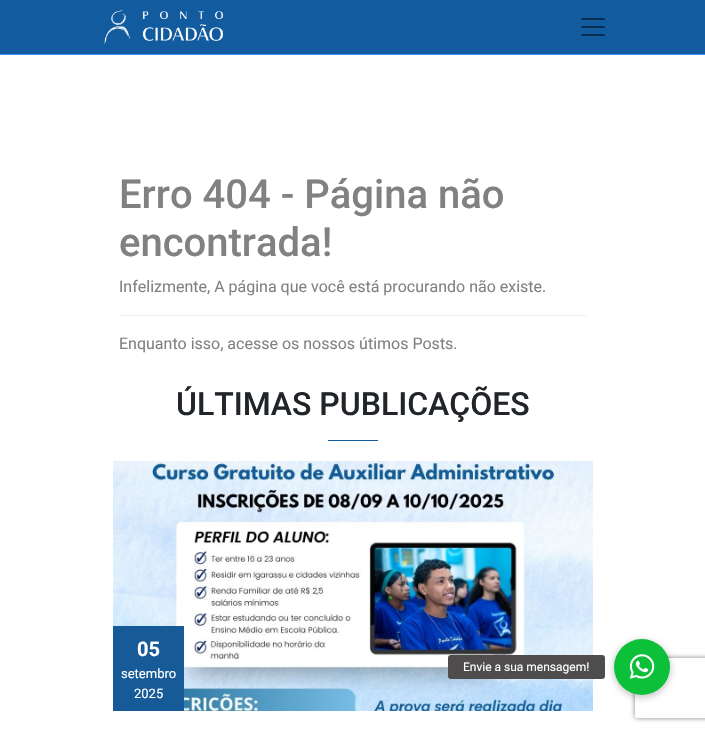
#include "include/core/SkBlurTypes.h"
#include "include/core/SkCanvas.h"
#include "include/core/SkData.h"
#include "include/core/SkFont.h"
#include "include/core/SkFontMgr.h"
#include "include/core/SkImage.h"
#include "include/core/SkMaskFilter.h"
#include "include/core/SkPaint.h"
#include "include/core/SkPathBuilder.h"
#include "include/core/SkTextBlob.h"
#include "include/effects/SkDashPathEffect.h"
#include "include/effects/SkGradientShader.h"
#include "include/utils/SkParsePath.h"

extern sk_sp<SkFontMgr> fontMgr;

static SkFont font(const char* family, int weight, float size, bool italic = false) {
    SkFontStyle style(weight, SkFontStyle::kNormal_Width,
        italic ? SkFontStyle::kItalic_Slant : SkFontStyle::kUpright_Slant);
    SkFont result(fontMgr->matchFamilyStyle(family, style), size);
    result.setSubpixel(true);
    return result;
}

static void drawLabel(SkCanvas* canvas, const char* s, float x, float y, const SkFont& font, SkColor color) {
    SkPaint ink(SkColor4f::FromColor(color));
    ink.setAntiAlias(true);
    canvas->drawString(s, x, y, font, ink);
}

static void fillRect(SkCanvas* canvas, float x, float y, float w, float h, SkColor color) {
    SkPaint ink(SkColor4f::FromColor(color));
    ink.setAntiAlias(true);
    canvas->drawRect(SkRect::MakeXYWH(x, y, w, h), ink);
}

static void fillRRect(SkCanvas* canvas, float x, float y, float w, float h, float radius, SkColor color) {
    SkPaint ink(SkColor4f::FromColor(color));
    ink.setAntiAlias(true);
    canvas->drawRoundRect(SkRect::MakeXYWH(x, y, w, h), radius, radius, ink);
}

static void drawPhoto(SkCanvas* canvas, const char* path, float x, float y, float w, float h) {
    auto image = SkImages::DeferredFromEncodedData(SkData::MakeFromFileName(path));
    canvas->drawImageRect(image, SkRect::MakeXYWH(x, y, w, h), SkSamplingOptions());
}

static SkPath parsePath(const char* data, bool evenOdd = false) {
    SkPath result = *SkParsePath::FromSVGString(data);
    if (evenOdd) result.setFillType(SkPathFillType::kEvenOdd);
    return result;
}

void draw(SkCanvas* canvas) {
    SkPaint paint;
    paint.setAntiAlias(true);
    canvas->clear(0xFFFFFFFF);
    fillRect(canvas, 0, 0, 705, 54, 0xFF125B9F);
    fillRect(canvas, 0, 54, 705, 1, 0xFF4390FF);
    drawPhoto(canvas, "assets/img1.png", 104, 10, 119, 35);
    drawPhoto(canvas, "assets/img2.png", 581, 18, 24, 18);
    SkFont font1 = font("Roboto", 500, 40);
    drawLabel(canvas, "Erro 404 - Página não", 119, 208, font1, 0xFF818182);
    drawLabel(canvas, "encontrada!", 119, 256, font1, 0xFF818182);
    SkFont font2 = font("Roboto", 400, 16);
    drawLabel(canvas, "Infelizmente, A página que você está procurando não existe.", 119, 292, font2, 0xFF818182);
    fillRect(canvas, 119, 315, 468, 1, 0xFFECECF6);
    drawLabel(canvas, "Enquanto isso, acesse os nossos útimos Posts.", 119, 349, font2, 0xFF818182);
    SkFont font3 = font("Roboto", 500, 32);
    drawLabel(canvas, "ÚLTIMAS PUBLICAÇÕES", 176, 415, font3, 0xFF212529);
    fillRect(canvas, 328, 440, 50, 1, 0xFF125B9F);
    drawPhoto(canvas, "assets/img3.png", 113, 461, 480, 250);
    fillRect(canvas, 113, 626, 71, 85, 0xFF175A98);
    SkFont font4 = font("Roboto", 700, 20);
    drawLabel(canvas, "05", 137, 656, font4, 0xFFFFFFFF);
    SkFont font5 = font("Roboto", 400, 13);
    drawLabel(canvas, "setembro", 121, 678, font5, 0xFFFFFFFF);
    drawLabel(canvas, "2025", 134, 698, font5, 0xFFFFFFFF);
    canvas->save();
    canvas->clipPath(parsePath("M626 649H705V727H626ZM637 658H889C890 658 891 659 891 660V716C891 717 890 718 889 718H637C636 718 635 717 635 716V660C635 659 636 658 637 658Z", true), true);
    paint.setColor(0xFF808080);
    paint.setMaskFilter(SkMaskFilter::MakeBlur(kNormal_SkBlurStyle, 2.5f));
    canvas->drawRoundRect(SkRect::MakeXYWH(635, 658, 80, 60), 2, 2, paint);
    paint.setMaskFilter(nullptr);
    canvas->restore();
    paint.setColor(0x33000000);
    paint.setMaskFilter(SkMaskFilter::MakeBlur(kNormal_SkBlurStyle, 3));
    canvas->drawRoundRect(SkRect::MakeXYWH(613, 640, 58, 58), 29, 29, paint);
    paint.setMaskFilter(nullptr);
    paint.setColor(0xFF0CC039);
    canvas->drawCircle(642, 667, 28, paint);
    fillRRect(canvas, 448, 655, 157, 24, 3, 0xFF4E4C4C);
    SkFont font6 = font("Roboto", 400, 12);
    drawLabel(canvas, "Envie a sua mensagem!", 463, 671, font6, 0xFFFFFFFF);
    drawPhoto(canvas, "assets/img4.png", 629, 654, 26, 25);
}
